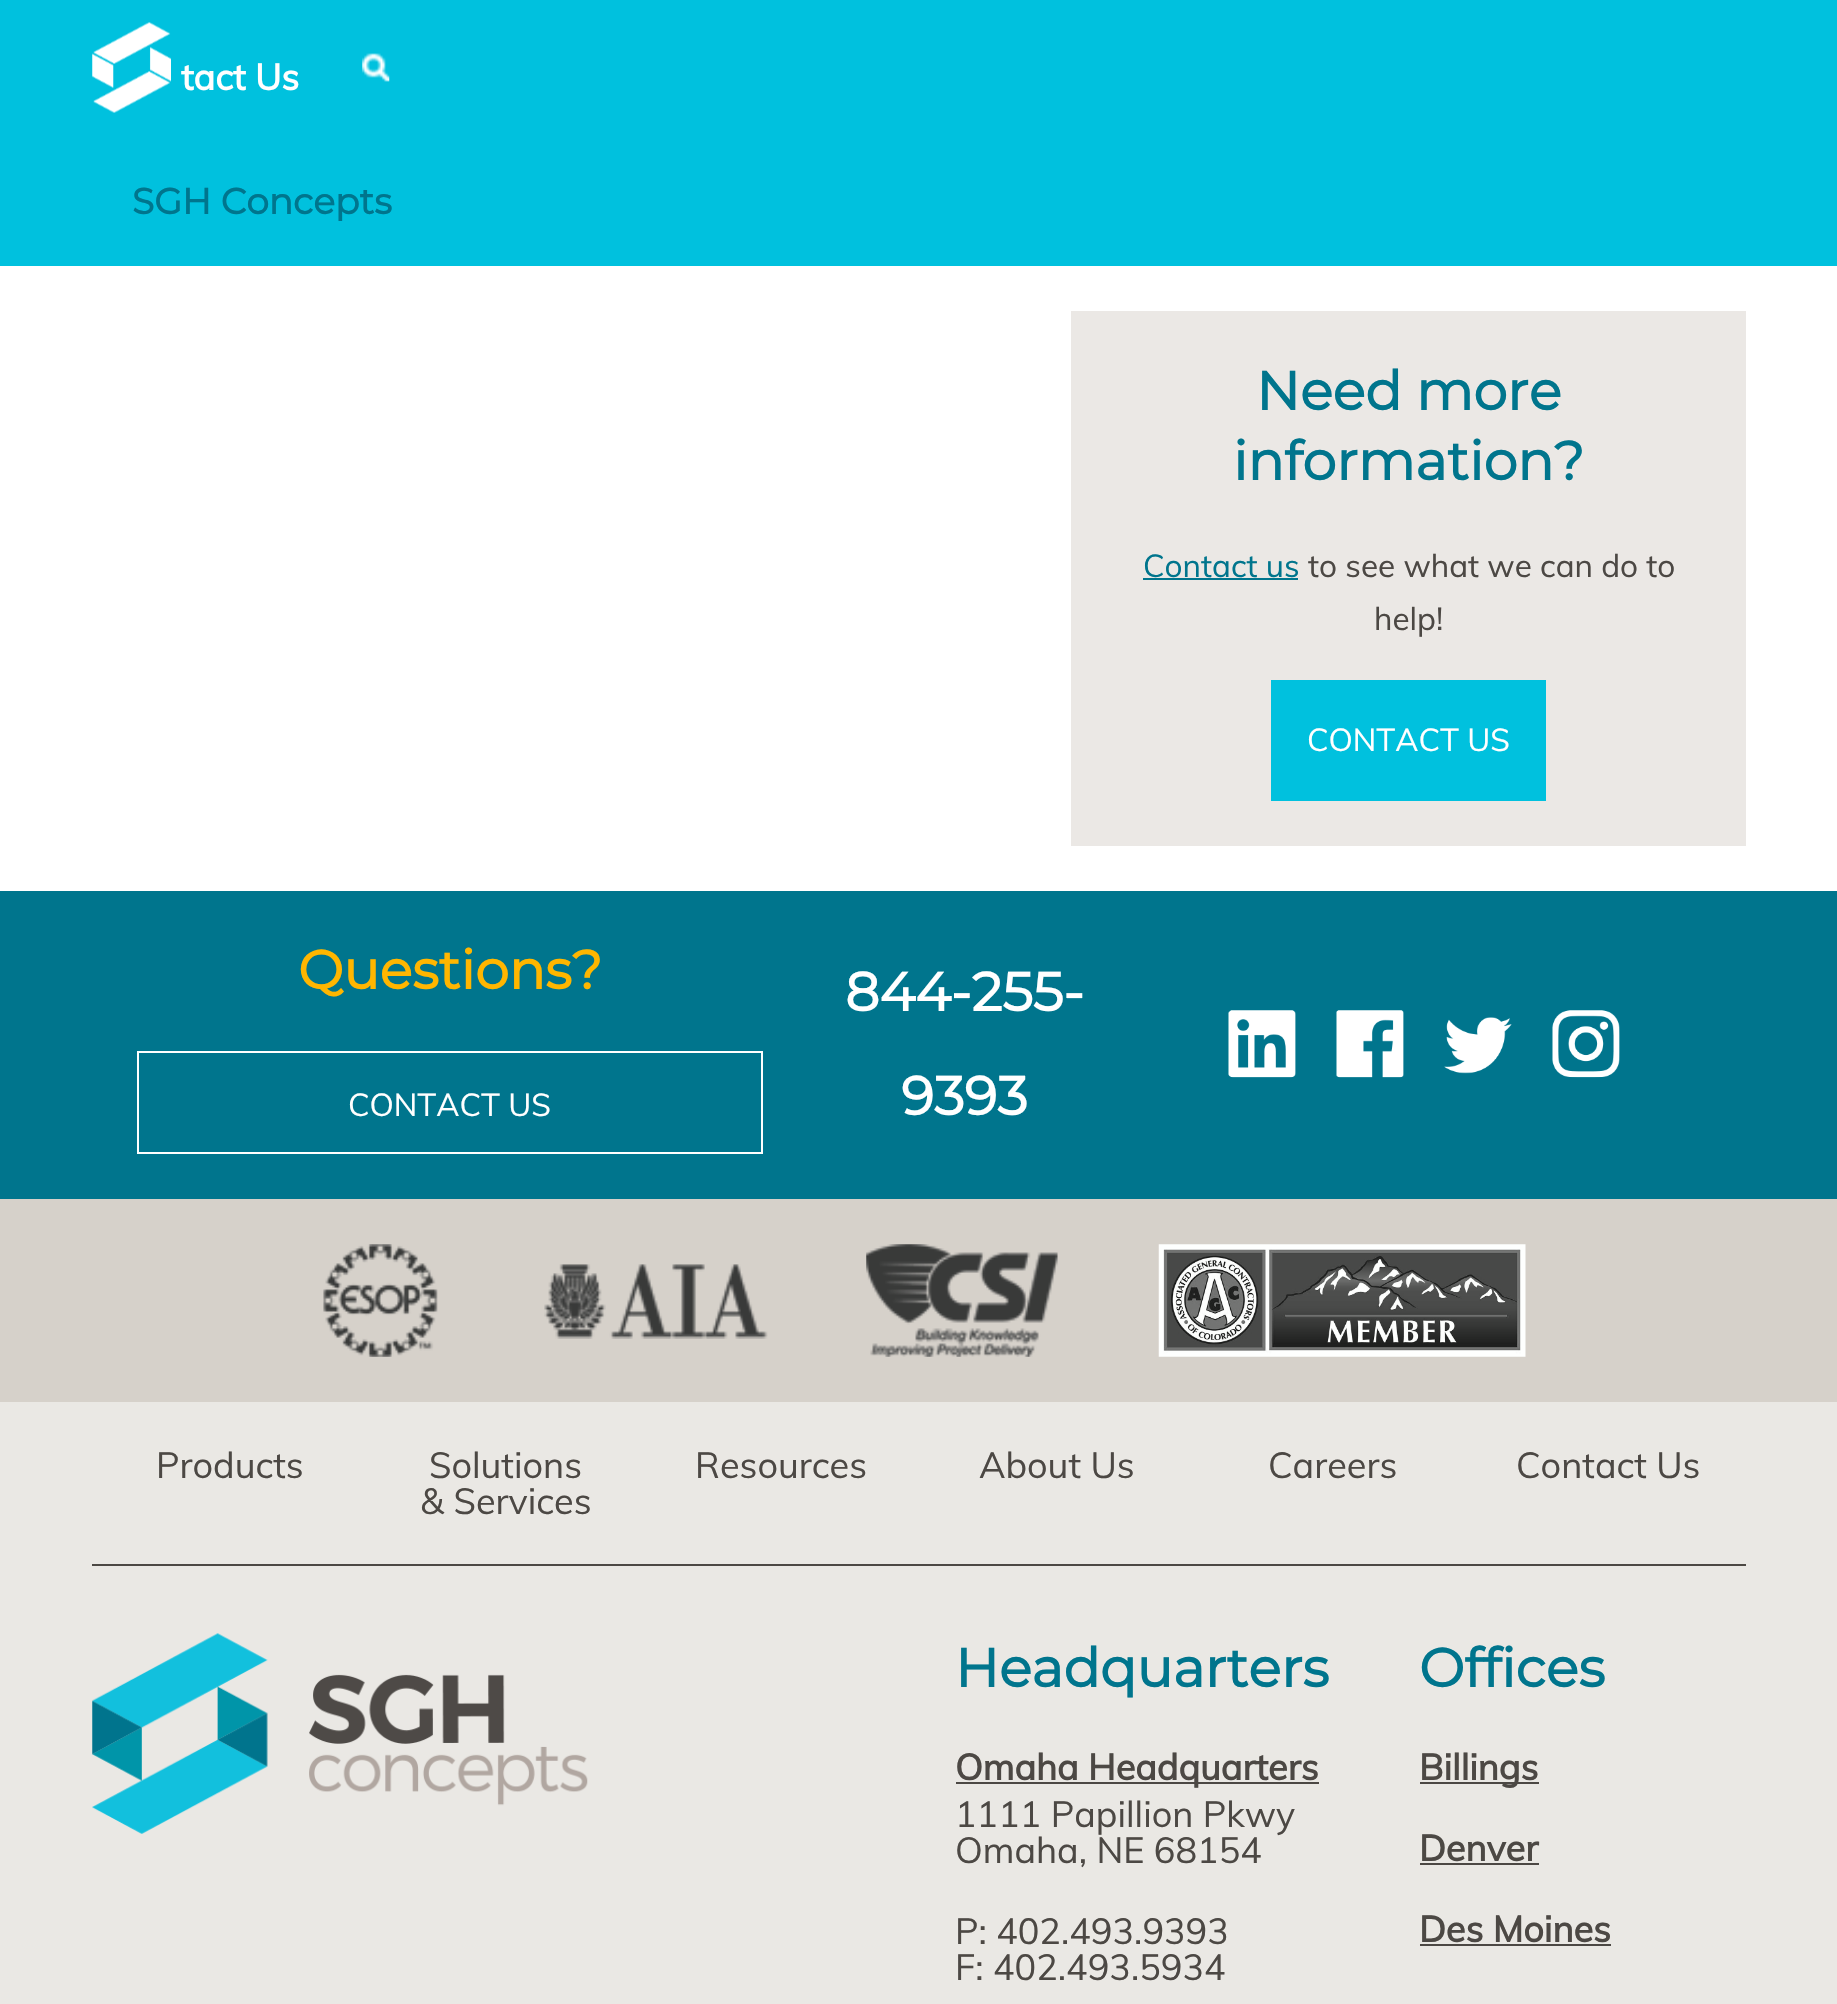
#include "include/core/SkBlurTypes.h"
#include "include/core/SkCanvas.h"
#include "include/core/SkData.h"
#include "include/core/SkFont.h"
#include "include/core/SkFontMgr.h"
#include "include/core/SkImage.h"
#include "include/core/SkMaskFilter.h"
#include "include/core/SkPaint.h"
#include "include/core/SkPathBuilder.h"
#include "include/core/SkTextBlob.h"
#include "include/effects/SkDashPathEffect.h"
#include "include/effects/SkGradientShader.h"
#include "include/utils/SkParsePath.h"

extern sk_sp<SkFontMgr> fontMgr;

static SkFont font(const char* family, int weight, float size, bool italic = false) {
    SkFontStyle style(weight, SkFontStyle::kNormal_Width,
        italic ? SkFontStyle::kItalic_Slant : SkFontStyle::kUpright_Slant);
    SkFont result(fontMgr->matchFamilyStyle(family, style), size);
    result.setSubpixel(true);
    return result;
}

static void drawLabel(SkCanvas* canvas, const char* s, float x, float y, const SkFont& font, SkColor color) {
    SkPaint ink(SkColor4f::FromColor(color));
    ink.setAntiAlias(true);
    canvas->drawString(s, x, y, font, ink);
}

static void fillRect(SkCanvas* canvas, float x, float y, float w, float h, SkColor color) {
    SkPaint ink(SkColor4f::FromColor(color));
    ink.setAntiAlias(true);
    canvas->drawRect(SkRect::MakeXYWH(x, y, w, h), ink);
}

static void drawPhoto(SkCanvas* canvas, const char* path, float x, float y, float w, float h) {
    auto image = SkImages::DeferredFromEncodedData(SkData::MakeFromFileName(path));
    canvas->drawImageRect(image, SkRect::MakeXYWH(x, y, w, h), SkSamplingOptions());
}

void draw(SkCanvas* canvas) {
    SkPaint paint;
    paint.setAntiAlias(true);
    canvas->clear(0xFFFFFFFF);
    fillRect(canvas, 0, 0, 1837, 266, 0xFF00C1DE);
    drawPhoto(canvas, "assets/img1.png", 92, 22, 79, 91);
    SkFont font1 = font("Muli", 700, 36);
    drawLabel(canvas, "tact Us", 181, 90, font1, 0xFFFFFFFF);
    drawPhoto(canvas, "assets/img2.png", 362, 53, 28, 29);
    SkFont font2 = font("Montserrat", 700, 36);
    drawLabel(canvas, "SGH Concepts", 132, 214, font2, 0xFF00758D);
    fillRect(canvas, 1071, 311, 675, 535, 0xFFEBE8E5);
    SkFont font3 = font("Montserrat", 700, 54);
    drawLabel(canvas, "Need more", 1256, 410, font3, 0xFF00758D);
    drawLabel(canvas, "information?", 1233, 480, font3, 0xFF00758D);
    SkFont font4 = font("Muli", 400, 31.5f);
    drawLabel(canvas, "Contact us", 1143, 577, font4, 0xFF00758D);
    fillRect(canvas, 1143, 578, 155, 2, 0xFF00758D);
    drawLabel(canvas, "to see what we can do to", 1308, 577, font4, 0xFF4C4844);
    drawLabel(canvas, "help!", 1374, 630, font4, 0xFF4C4844);
    fillRect(canvas, 1271, 680, 275, 121, 0xFF00C1DE);
    drawLabel(canvas, "CONTACT US", 1307, 751, font4, 0xFFFFFFFF);
    fillRect(canvas, 0, 1402, 1837, 602, 0xFFEAE8E4);
    fillRect(canvas, 0, 891, 1837, 308, 0xFF00758D);
    drawLabel(canvas, "Questions?", 298, 989, font3, 0xFFFFB600);
    paint.setStroke(true);
    paint.setStrokeWidth(2);
    paint.setColor(0xFFFFFFFF);
    canvas->drawRect(SkRect::MakeXYWH(138, 1052, 624, 101), paint);
    drawLabel(canvas, "CONTACT US", 348, 1116, font4, 0xFFFFFFFF);
    drawLabel(canvas, "844-255-", 845, 1011, font3, 0xFFFFFFFF);
    drawLabel(canvas, "9393", 901, 1115, font3, 0xFFFFFFFF);
    drawPhoto(canvas, "assets/img3.png", 1228, 1010, 68, 68);
    drawPhoto(canvas, "assets/img4.png", 1336, 1010, 68, 68);
    drawPhoto(canvas, "assets/img5.png", 1444, 1017, 68, 57);
    drawPhoto(canvas, "assets/img6.png", 1552, 1010, 68, 68);
    fillRect(canvas, 0, 1199, 1837, 203, 0xFFD6D1CA);
    drawPhoto(canvas, "assets/img7.png", 323, 1244, 115, 113);
    drawPhoto(canvas, "assets/img8.png", 544, 1264, 224, 75);
    drawPhoto(canvas, "assets/img9.png", 866, 1244, 192, 113);
    drawPhoto(canvas, "assets/img10.png", 1158, 1244, 368, 113);
    fillRect(canvas, 92, 1564, 1654, 2, 0xFF4C4844);
    SkFont font5 = font("Muli", 400, 36);
    drawLabel(canvas, "Products", 156, 1478, font5, 0xFF4C4844);
    drawLabel(canvas, "Solutions", 429, 1478, font5, 0xFF4C4844);
    drawLabel(canvas, "& Services", 420, 1514, font5, 0xFF4C4844);
    drawLabel(canvas, "Resources", 695, 1478, font5, 0xFF4C4844);
    drawLabel(canvas, "About Us", 979, 1478, font5, 0xFF4C4844);
    drawLabel(canvas, "Careers", 1268, 1478, font5, 0xFF4C4844);
    drawLabel(canvas, "Contact Us", 1516, 1478, font5, 0xFF4C4844);
    drawPhoto(canvas, "assets/img11.png", 92, 1633, 496, 201);
    drawLabel(canvas, "Headquarters", 955, 1687, font3, 0xFF00758D);
    fillRect(canvas, 956, 1782, 363, 2, 0xFF4C4844);
    drawLabel(canvas, "Omaha Headquarters", 955, 1780, font1, 0xFF4C4844);
    drawLabel(canvas, "1111 Papillion Pkwy", 955, 1827, font5, 0xFF4C4844);
    drawLabel(canvas, "Omaha, NE 68154", 955, 1863, font5, 0xFF4C4844);
    drawLabel(canvas, "P: 402.493.9393", 955, 1944, font5, 0xFF4C4844);
    drawLabel(canvas, "F: 402.493.5934", 955, 1980, font5, 0xFF4C4844);
    drawLabel(canvas, "Offices", 1419, 1687, font3, 0xFF00758D);
    fillRect(canvas, 1420, 1782, 119, 2, 0xFF4C4844);
    drawLabel(canvas, "Billings", 1419, 1780, font1, 0xFF4C4844);
    drawLabel(canvas, "Denver", 1419, 1861, font1, 0xFF4C4844);
    fillRect(canvas, 1420, 1863, 119, 2, 0xFF4C4844);
    drawLabel(canvas, "Des Moines", 1419, 1942, font1, 0xFF4C4844);
    fillRect(canvas, 1420, 1944, 191, 2, 0xFF4C4844);
}
